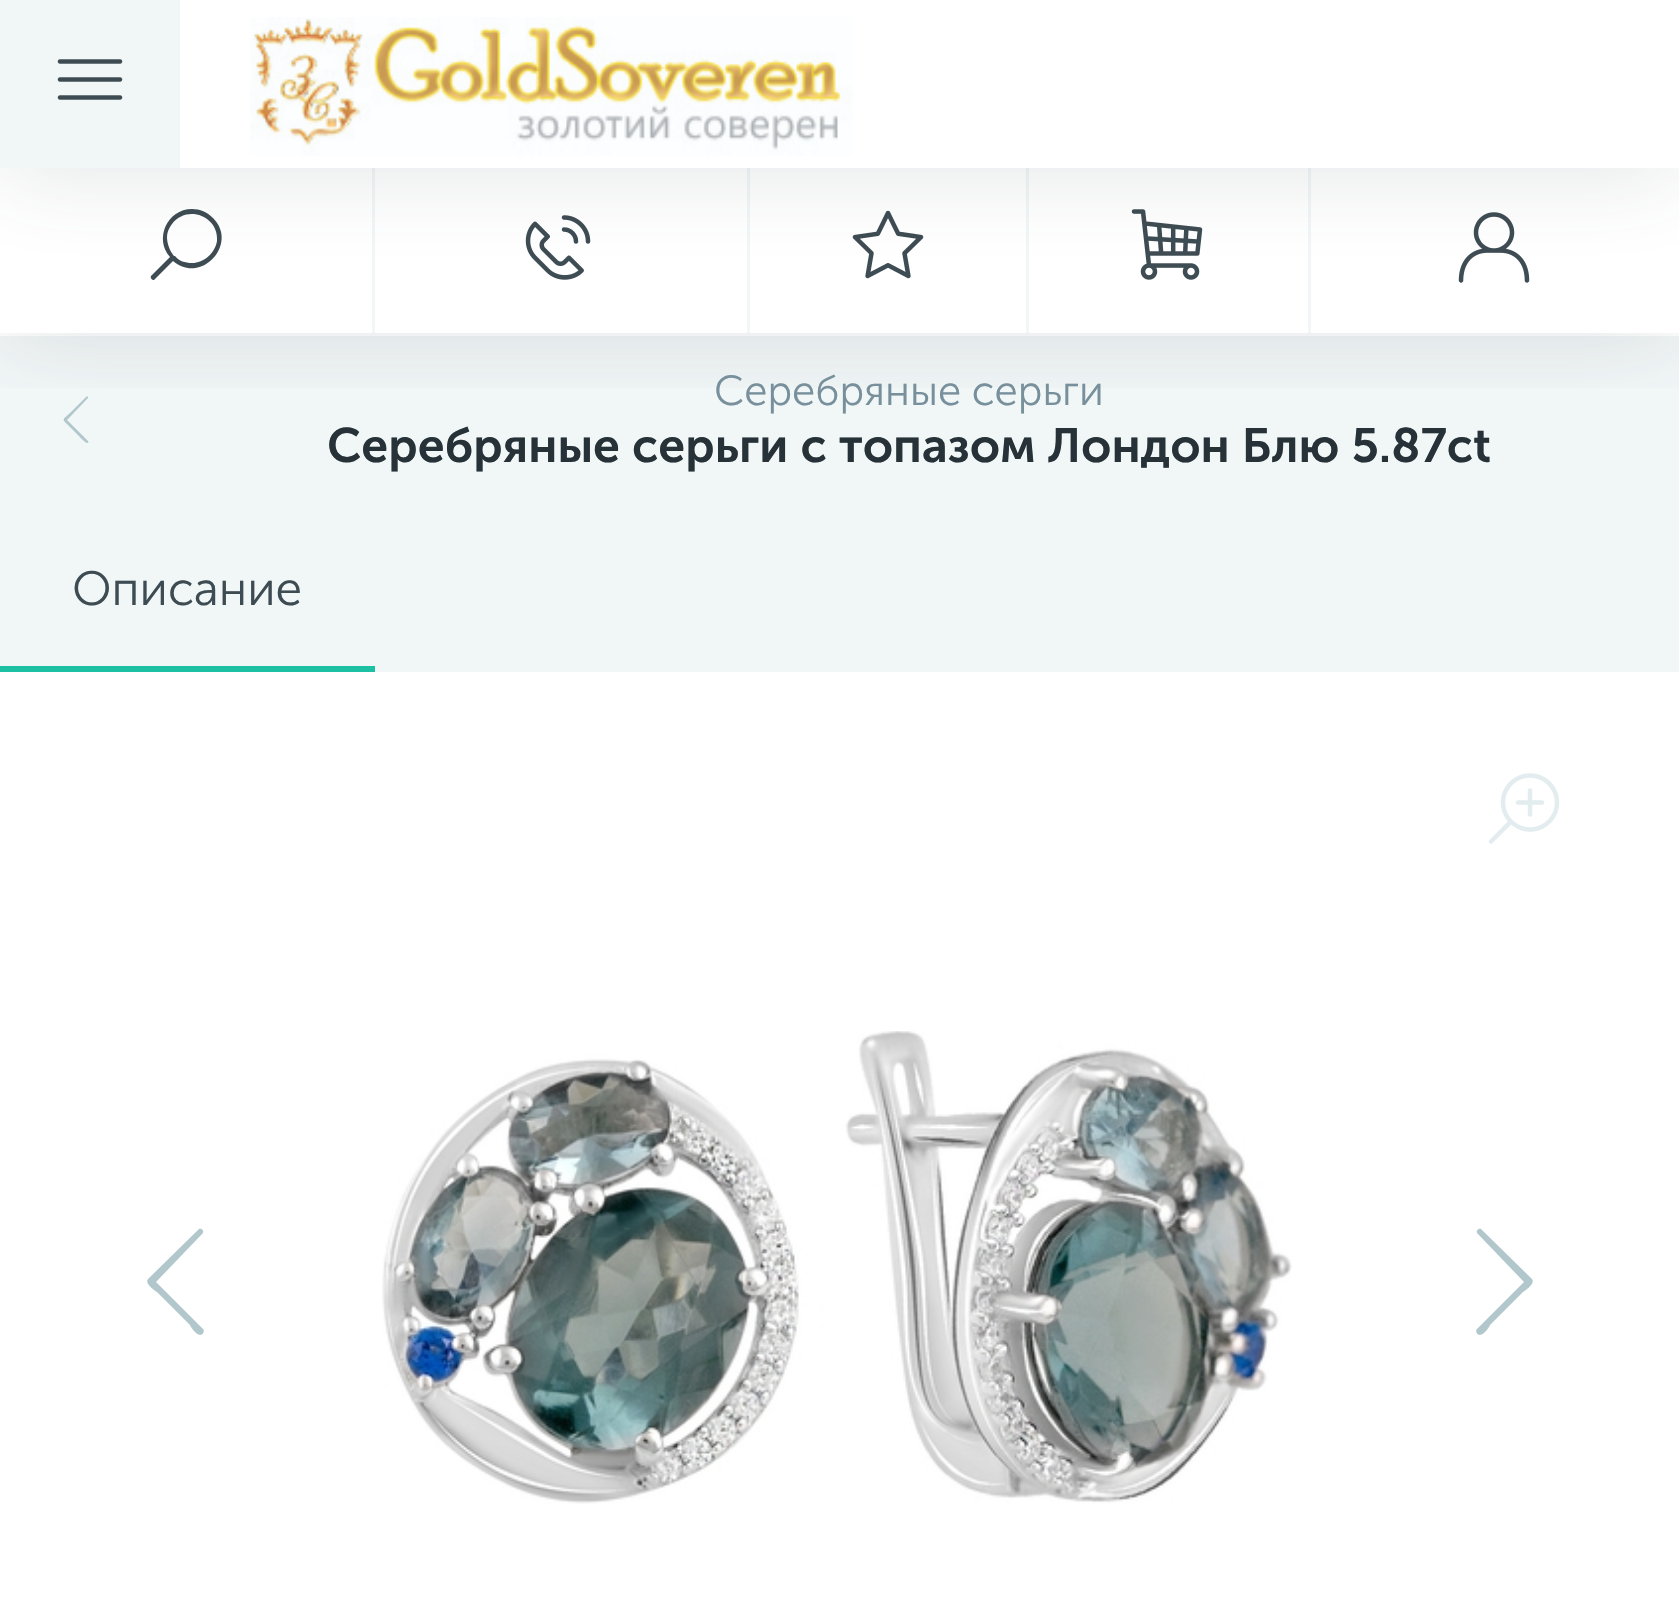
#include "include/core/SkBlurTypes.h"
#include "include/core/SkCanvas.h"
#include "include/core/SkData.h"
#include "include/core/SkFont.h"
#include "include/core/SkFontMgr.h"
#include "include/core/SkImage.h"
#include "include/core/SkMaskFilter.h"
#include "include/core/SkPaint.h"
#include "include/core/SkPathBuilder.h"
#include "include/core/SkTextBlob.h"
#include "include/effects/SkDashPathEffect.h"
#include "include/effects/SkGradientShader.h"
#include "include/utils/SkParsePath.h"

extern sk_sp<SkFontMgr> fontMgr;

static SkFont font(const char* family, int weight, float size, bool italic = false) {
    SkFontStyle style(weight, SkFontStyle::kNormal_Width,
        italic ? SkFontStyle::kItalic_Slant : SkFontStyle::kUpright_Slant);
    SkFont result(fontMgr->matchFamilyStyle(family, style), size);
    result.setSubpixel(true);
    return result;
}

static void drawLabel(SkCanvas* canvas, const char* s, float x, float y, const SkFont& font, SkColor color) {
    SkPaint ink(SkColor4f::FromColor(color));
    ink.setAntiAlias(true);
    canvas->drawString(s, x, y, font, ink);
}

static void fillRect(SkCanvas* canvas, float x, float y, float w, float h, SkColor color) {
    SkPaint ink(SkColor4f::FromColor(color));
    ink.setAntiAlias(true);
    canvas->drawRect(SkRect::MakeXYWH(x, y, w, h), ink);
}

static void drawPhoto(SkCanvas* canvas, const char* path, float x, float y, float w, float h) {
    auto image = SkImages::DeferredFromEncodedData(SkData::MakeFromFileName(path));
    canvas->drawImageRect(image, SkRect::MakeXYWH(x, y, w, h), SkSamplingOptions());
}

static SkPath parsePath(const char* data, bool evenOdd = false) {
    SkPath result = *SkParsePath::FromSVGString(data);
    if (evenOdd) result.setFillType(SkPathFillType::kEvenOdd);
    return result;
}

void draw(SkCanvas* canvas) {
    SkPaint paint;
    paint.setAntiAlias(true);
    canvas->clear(0xFFFFFFFF);
    fillRect(canvas, 0, 336, 1679, 336, 0xFFF1F6F7);
    paint.setColor(0xFFB2C7CB);
    canvas->drawPath(parsePath("M87 443C85 443 77 434 75 432L68 425C61 418 63 420 71 412L86 397C87 396 89 397 88 398L67 420L88 441C89 442 88 443 87 443Z"), paint);
    canvas->save();
    canvas->clipRect(SkRect::MakeXYWH(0, 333, 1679, 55));
    paint.setColor(0x293D4B52);
    paint.setMaskFilter(SkMaskFilter::MakeBlur(kNormal_SkBlurStyle, 48));
    canvas->drawRect(SkRect::MakeXYWH(0, 165, 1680, 168), paint);
    paint.setMaskFilter(nullptr);
    canvas->restore();
    paint.setColor(0xFF3D4B52);
    canvas->drawPath(parsePath("M192 209C167 209 154 239 170 257L151 276C150 278 152 280 154 280L173 261C201 285 239 244 213 218C207 212 200 209 192 209ZM192 263C185 263 179 261 175 256H174C170 251 167 244 167 237C167 232 169 228 172 224C187 204 219 216 217 241C215 253 204 263 192 263Z"), paint);
    fillRect(canvas, 372, 165, 3, 168, 0xFFF1F6F7);
    drawPhoto(canvas, "assets/img3.png", 525, 215, 66, 65);
    fillRect(canvas, 747, 165, 3, 168, 0xFFF1F6F7);
    drawPhoto(canvas, "assets/img4.png", 852, 210, 72, 69);
    fillRect(canvas, 1026, 165, 3, 168, 0xFFF1F6F7);
    drawPhoto(canvas, "assets/img5.png", 1131, 209, 72, 71);
    fillRect(canvas, 1308, 165, 3, 168, 0xFFF1F6F7);
    drawPhoto(canvas, "assets/img6.png", 1458, 212, 72, 71);
    paint.setColor(0x293D4B52);
    paint.setMaskFilter(SkMaskFilter::MakeBlur(kNormal_SkBlurStyle, 48));
    canvas->drawRect(SkRect::MakeXYWH(0, 0, 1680, 168), paint);
    paint.setMaskFilter(nullptr);
    fillRect(canvas, 180, 0, 1499, 168, 0xFFFFFFFF);
    fillRect(canvas, 0, 0, 180, 168, 0xFFF1F6F7);
    drawPhoto(canvas, "assets/img1.png", 57, 59, 66, 41);
    drawPhoto(canvas, "assets/img2.png", 250, 17, 603, 139);
    SkFont font1 = font("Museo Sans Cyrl", 300, 42);
    drawLabel(canvas, "Серебряные серьги", 714, 405, font1, 0xFF78909C);
    SkFont font2 = font("Museo Sans Cyrl", 600, 48);
    drawLabel(canvas, "Серебряные серьги с топазом Лондон Блю 5.87ct", 327, 462, font2, 0xFF263238);
    SkFont font3 = font("Museo Sans Cyrl", 300, 48);
    drawLabel(canvas, "Описание", 72, 605, font3, 0xFF3D4B52);
    fillRect(canvas, 0, 666, 375, 6, 0xFF1CC1A4);
    drawPhoto(canvas, "assets/img7.png", 1488, 773, 72, 71);
    paint.setColor(0xFFB2C7CB);
    canvas->drawPath(parsePath("M200 1335C196 1335 190 1326 190 1325L157 1292C157 1292 144 1284 148 1279L199 1229C201 1228 204 1230 203 1233L156 1282L203 1329C205 1331 203 1335 200 1335Z"), paint);
    drawPhoto(canvas, "assets/img8.png", 382, 1031, 910, 473);
    canvas->drawPath(parsePath("M1480 1335C1477 1335 1475 1331 1477 1329L1524 1282L1477 1233C1476 1230 1479 1228 1481 1229L1532 1279C1536 1284 1523 1292 1523 1292L1490 1325C1490 1326 1484 1335 1480 1335Z"), paint);
}
